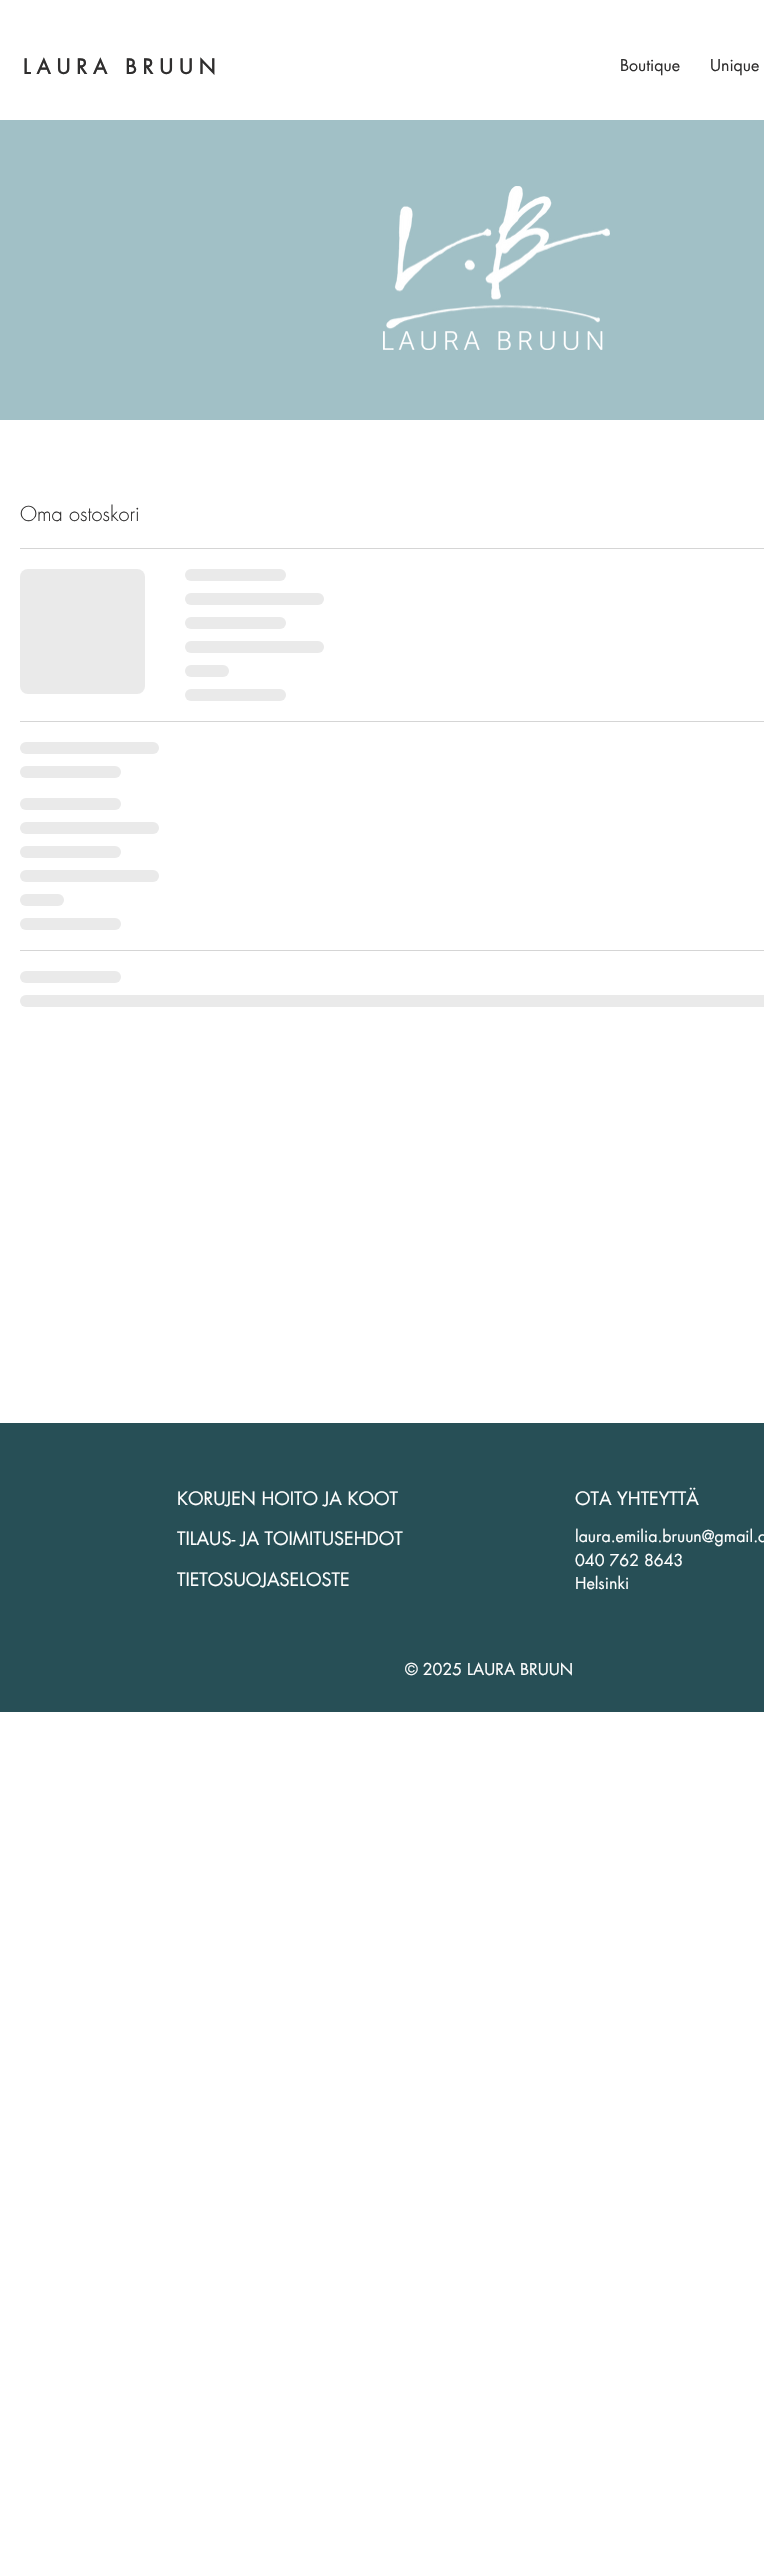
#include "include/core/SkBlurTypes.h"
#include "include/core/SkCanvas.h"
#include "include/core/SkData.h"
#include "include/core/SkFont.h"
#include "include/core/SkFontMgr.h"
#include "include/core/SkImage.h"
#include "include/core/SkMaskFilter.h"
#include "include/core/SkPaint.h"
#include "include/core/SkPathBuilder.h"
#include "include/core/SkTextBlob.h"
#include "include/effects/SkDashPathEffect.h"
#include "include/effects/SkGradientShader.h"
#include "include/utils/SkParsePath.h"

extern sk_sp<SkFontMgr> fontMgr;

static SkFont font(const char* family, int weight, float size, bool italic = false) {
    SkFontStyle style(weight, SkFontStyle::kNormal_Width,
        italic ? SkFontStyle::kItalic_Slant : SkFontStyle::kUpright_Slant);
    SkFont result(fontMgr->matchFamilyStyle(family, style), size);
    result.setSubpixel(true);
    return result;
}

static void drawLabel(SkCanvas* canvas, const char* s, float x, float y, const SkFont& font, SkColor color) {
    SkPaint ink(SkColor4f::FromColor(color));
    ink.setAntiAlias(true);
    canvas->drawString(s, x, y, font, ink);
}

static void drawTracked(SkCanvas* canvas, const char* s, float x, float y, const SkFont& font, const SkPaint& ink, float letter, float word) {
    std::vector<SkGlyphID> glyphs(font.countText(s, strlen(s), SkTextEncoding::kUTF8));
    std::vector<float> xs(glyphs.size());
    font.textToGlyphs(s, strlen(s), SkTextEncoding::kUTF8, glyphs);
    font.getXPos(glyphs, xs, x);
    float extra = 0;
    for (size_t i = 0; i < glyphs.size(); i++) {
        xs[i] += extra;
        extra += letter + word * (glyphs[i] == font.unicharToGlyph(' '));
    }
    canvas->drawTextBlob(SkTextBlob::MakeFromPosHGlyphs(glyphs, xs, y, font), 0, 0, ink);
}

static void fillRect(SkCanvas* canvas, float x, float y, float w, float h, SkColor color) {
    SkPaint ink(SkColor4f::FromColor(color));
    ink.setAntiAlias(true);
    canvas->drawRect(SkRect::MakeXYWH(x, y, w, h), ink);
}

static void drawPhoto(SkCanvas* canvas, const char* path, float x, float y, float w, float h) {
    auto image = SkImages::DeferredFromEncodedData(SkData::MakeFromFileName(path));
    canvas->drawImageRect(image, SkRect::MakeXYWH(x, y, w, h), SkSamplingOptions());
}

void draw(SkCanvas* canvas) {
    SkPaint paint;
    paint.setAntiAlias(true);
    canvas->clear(0xFFFFFFFF);
    SkFont font1 = font("futura", 700, 20);
    paint.setColor(0xFF2F2E2E);
    drawTracked(canvas, "LAURA BRUUN", 23, 74, font1, paint, 6, 0);
    SkFont font2 = font("futura", 400, 16);
    drawLabel(canvas, "Boutique", 620, 71, font2, 0xFF2F2E2E);
    drawLabel(canvas, "Unique", 710, 71, font2, 0xFF2F2E2E);
    fillRect(canvas, 0, 120, 764, 300, 0xFFA1C0C6);
    drawPhoto(canvas, "assets/img1.png", 383, 186, 227, 164);
    fillRect(canvas, 20, 548, 744, 1, 0xFFD5D5D5);
    SkFont font3 = font("futura", 300, 20);
    drawLabel(canvas, "Oma ostoskori", 20, 521, font3, 0xFF2F2E2E);
    {
        const SkColor colors[] = {0xFFEAEAEA, 0xFFD5D5D5, 0xFFEAEAEA};
        const float stops[] = {0.25f, 0.37f, 0.63f};
        const SkPoint ends[] = {{20, 632}, {520, 632}};
        paint.setShader(SkGradientShader::MakeLinear(ends, colors, stops, 3, SkTileMode::kClamp));
        paint.setAlpha(255);
    }
    canvas->drawRoundRect(SkRect::MakeXYWH(20, 569, 125, 125), 8, 8, paint);
    {
        const SkColor colors[] = {0xFFEAEAEA, 0xFFD5D5D5, 0xFFEAEAEA};
        const float stops[] = {0.25f, 0.37f, 0.63f};
        const SkPoint ends[] = {{185, 575}, {589, 575}};
        paint.setShader(SkGradientShader::MakeLinear(ends, colors, stops, 3, SkTileMode::kClamp));
        paint.setAlpha(255);
    }
    canvas->drawRoundRect(SkRect::MakeXYWH(185, 569, 101, 12), 6, 6, paint);
    {
        const SkColor colors[] = {0xFFEAEAEA, 0xFFD5D5D5, 0xFFEAEAEA};
        const float stops[] = {0.25f, 0.37f, 0.63f};
        const SkPoint ends[] = {{185, 599}, {741, 599}};
        paint.setShader(SkGradientShader::MakeLinear(ends, colors, stops, 3, SkTileMode::kClamp));
        paint.setAlpha(255);
    }
    canvas->drawRoundRect(SkRect::MakeXYWH(185, 593, 139, 12), 6, 6, paint);
    {
        const SkColor colors[] = {0xFFEAEAEA, 0xFFD5D5D5, 0xFFEAEAEA};
        const float stops[] = {0.25f, 0.37f, 0.63f};
        const SkPoint ends[] = {{185, 623}, {589, 623}};
        paint.setShader(SkGradientShader::MakeLinear(ends, colors, stops, 3, SkTileMode::kClamp));
        paint.setAlpha(255);
    }
    canvas->drawRoundRect(SkRect::MakeXYWH(185, 617, 101, 12), 6, 6, paint);
    {
        const SkColor colors[] = {0xFFEAEAEA, 0xFFD5D5D5, 0xFFEAEAEA};
        const float stops[] = {0.25f, 0.37f, 0.63f};
        const SkPoint ends[] = {{185, 647}, {741, 647}};
        paint.setShader(SkGradientShader::MakeLinear(ends, colors, stops, 3, SkTileMode::kClamp));
        paint.setAlpha(255);
    }
    canvas->drawRoundRect(SkRect::MakeXYWH(185, 641, 139, 12), 6, 6, paint);
    {
        const SkColor colors[] = {0xFFEAEAEA, 0xFFD5D5D5, 0xFFEAEAEA};
        const float stops[] = {0.25f, 0.37f, 0.63f};
        const SkPoint ends[] = {{185, 671}, {361, 671}};
        paint.setShader(SkGradientShader::MakeLinear(ends, colors, stops, 3, SkTileMode::kClamp));
        paint.setAlpha(255);
    }
    canvas->drawRoundRect(SkRect::MakeXYWH(185, 665, 44, 12), 6, 6, paint);
    {
        const SkColor colors[] = {0xFFEAEAEA, 0xFFD5D5D5, 0xFFEAEAEA};
        const float stops[] = {0.25f, 0.37f, 0.63f};
        const SkPoint ends[] = {{185, 695}, {589, 695}};
        paint.setShader(SkGradientShader::MakeLinear(ends, colors, stops, 3, SkTileMode::kClamp));
        paint.setAlpha(255);
    }
    canvas->drawRoundRect(SkRect::MakeXYWH(185, 689, 101, 12), 6, 6, paint);
    fillRect(canvas, 20, 721, 744, 1, 0xFFD5D5D5);
    {
        const SkColor colors[] = {0xFFEAEAEA, 0xFFD5D5D5, 0xFFEAEAEA};
        const float stops[] = {0.25f, 0.37f, 0.63f};
        const SkPoint ends[] = {{20, 748}, {576, 748}};
        paint.setShader(SkGradientShader::MakeLinear(ends, colors, stops, 3, SkTileMode::kClamp));
        paint.setAlpha(255);
    }
    canvas->drawRoundRect(SkRect::MakeXYWH(20, 742, 139, 12), 6, 6, paint);
    {
        const SkColor colors[] = {0xFFEAEAEA, 0xFFD5D5D5, 0xFFEAEAEA};
        const float stops[] = {0.25f, 0.37f, 0.63f};
        const SkPoint ends[] = {{20, 772}, {424, 772}};
        paint.setShader(SkGradientShader::MakeLinear(ends, colors, stops, 3, SkTileMode::kClamp));
        paint.setAlpha(255);
    }
    canvas->drawRoundRect(SkRect::MakeXYWH(20, 766, 101, 12), 6, 6, paint);
    {
        const SkColor colors[] = {0xFFEAEAEA, 0xFFD5D5D5, 0xFFEAEAEA};
        const float stops[] = {0.25f, 0.37f, 0.63f};
        const SkPoint ends[] = {{20, 804}, {424, 804}};
        paint.setShader(SkGradientShader::MakeLinear(ends, colors, stops, 3, SkTileMode::kClamp));
        paint.setAlpha(255);
    }
    canvas->drawRoundRect(SkRect::MakeXYWH(20, 798, 101, 12), 6, 6, paint);
    {
        const SkColor colors[] = {0xFFEAEAEA, 0xFFD5D5D5, 0xFFEAEAEA};
        const float stops[] = {0.25f, 0.37f, 0.63f};
        const SkPoint ends[] = {{20, 828}, {576, 828}};
        paint.setShader(SkGradientShader::MakeLinear(ends, colors, stops, 3, SkTileMode::kClamp));
        paint.setAlpha(255);
    }
    canvas->drawRoundRect(SkRect::MakeXYWH(20, 822, 139, 12), 6, 6, paint);
    {
        const SkColor colors[] = {0xFFEAEAEA, 0xFFD5D5D5, 0xFFEAEAEA};
        const float stops[] = {0.25f, 0.37f, 0.63f};
        const SkPoint ends[] = {{20, 852}, {424, 852}};
        paint.setShader(SkGradientShader::MakeLinear(ends, colors, stops, 3, SkTileMode::kClamp));
        paint.setAlpha(255);
    }
    canvas->drawRoundRect(SkRect::MakeXYWH(20, 846, 101, 12), 6, 6, paint);
    {
        const SkColor colors[] = {0xFFEAEAEA, 0xFFD5D5D5, 0xFFEAEAEA};
        const float stops[] = {0.25f, 0.37f, 0.63f};
        const SkPoint ends[] = {{20, 876}, {576, 876}};
        paint.setShader(SkGradientShader::MakeLinear(ends, colors, stops, 3, SkTileMode::kClamp));
        paint.setAlpha(255);
    }
    canvas->drawRoundRect(SkRect::MakeXYWH(20, 870, 139, 12), 6, 6, paint);
    {
        const SkColor colors[] = {0xFFEAEAEA, 0xFFD5D5D5, 0xFFEAEAEA};
        const float stops[] = {0.25f, 0.37f, 0.63f};
        const SkPoint ends[] = {{20, 900}, {196, 900}};
        paint.setShader(SkGradientShader::MakeLinear(ends, colors, stops, 3, SkTileMode::kClamp));
        paint.setAlpha(255);
    }
    canvas->drawRoundRect(SkRect::MakeXYWH(20, 894, 44, 12), 6, 6, paint);
    {
        const SkColor colors[] = {0xFFEAEAEA, 0xFFD5D5D5, 0xFFEAEAEA};
        const float stops[] = {0.25f, 0.37f, 0.63f};
        const SkPoint ends[] = {{20, 924}, {424, 924}};
        paint.setShader(SkGradientShader::MakeLinear(ends, colors, stops, 3, SkTileMode::kClamp));
        paint.setAlpha(255);
    }
    canvas->drawRoundRect(SkRect::MakeXYWH(20, 918, 101, 12), 6, 6, paint);
    fillRect(canvas, 20, 950, 744, 1, 0xFFD5D5D5);
    {
        const SkColor colors[] = {0xFFEAEAEA, 0xFFD5D5D5, 0xFFEAEAEA};
        const float stops[] = {0.25f, 0.37f, 0.63f};
        const SkPoint ends[] = {{20, 977}, {424, 977}};
        paint.setShader(SkGradientShader::MakeLinear(ends, colors, stops, 3, SkTileMode::kClamp));
        paint.setAlpha(255);
    }
    canvas->drawRoundRect(SkRect::MakeXYWH(20, 971, 101, 12), 6, 6, paint);
    {
        const SkColor colors[] = {0xFFEAEAEA, 0xFFD5D5D5, 0xFFEAEAEA};
        const float stops[] = {0.25f, 0.37f, 0.63f};
        const SkPoint ends[] = {{20, 1001}, {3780, 1001}};
        paint.setShader(SkGradientShader::MakeLinear(ends, colors, stops, 3, SkTileMode::kClamp));
        paint.setAlpha(255);
    }
    canvas->drawRoundRect(SkRect::MakeXYWH(20, 995, 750, 12), 6, 6, paint);
    fillRect(canvas, 0, 1423, 764, 289, 0xFF274F56);
    SkFont font4 = font("futura", 400, 18);
    drawLabel(canvas, "KORUJEN HOITO JA KOOT", 177, 1505, font4, 0xFFFFFFFF);
    drawLabel(canvas, "OTA YHTEYTTÄ", 575, 1505, font4, 0xFFFFFFFF);
    drawLabel(canvas, "TILAUS- JA TOIMITUSEHDOT", 177, 1545, font4, 0xFFFFFFFF);
    drawLabel(canvas, "laura.emilia.bruun@gmail.c", 575, 1542, font2, 0xFFFFFFFF);
    drawLabel(canvas, "040 762 8643", 575, 1566, font2, 0xFFFFFFFF);
    drawLabel(canvas, "Helsinki", 575, 1589, font2, 0xFFFFFFFF);
    drawLabel(canvas, "TIETOSUOJASELOSTE", 177, 1586, font4, 0xFFFFFFFF);
    drawLabel(canvas, "© 2025 LAURA BRUUN", 405, 1675, font2, 0xFFFFFFFF);
}
